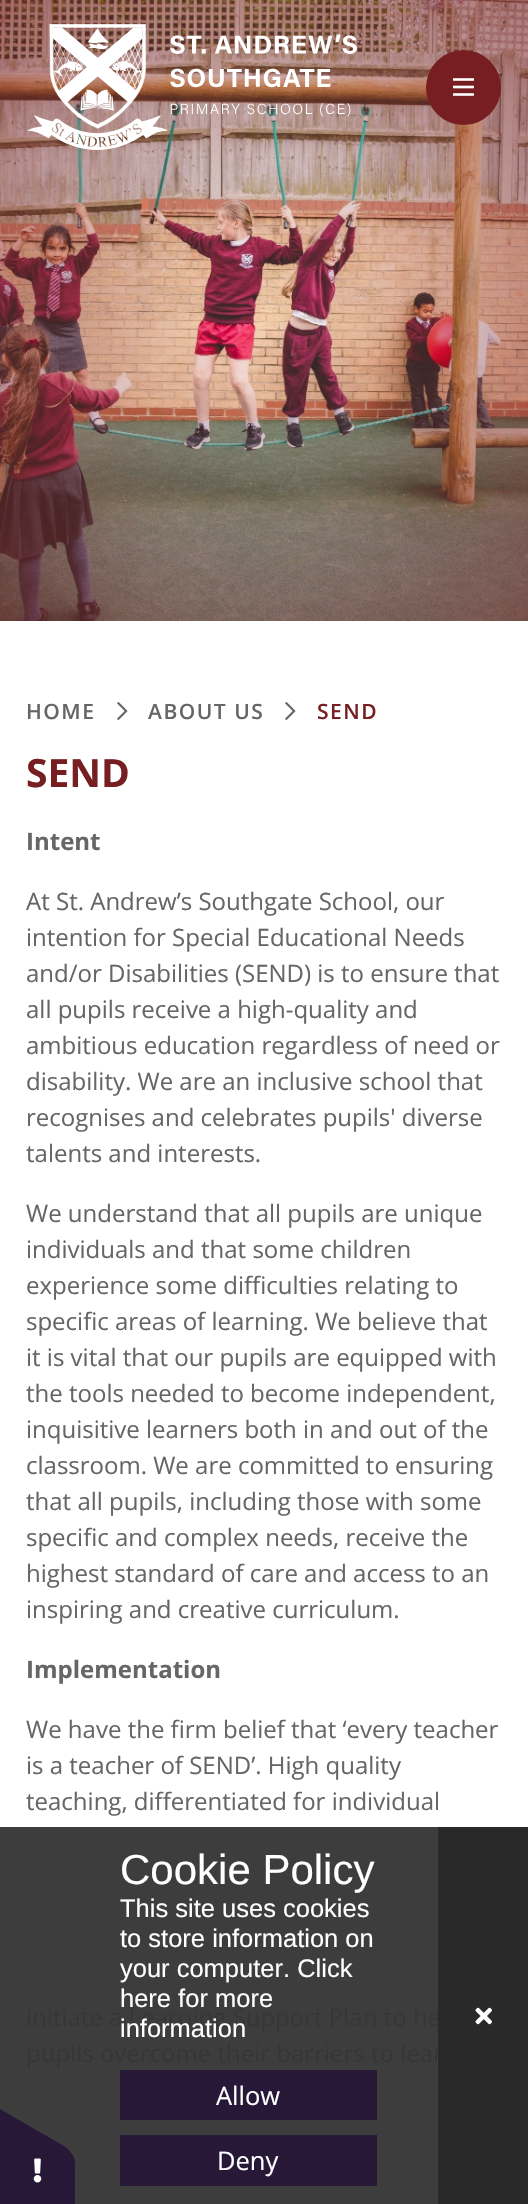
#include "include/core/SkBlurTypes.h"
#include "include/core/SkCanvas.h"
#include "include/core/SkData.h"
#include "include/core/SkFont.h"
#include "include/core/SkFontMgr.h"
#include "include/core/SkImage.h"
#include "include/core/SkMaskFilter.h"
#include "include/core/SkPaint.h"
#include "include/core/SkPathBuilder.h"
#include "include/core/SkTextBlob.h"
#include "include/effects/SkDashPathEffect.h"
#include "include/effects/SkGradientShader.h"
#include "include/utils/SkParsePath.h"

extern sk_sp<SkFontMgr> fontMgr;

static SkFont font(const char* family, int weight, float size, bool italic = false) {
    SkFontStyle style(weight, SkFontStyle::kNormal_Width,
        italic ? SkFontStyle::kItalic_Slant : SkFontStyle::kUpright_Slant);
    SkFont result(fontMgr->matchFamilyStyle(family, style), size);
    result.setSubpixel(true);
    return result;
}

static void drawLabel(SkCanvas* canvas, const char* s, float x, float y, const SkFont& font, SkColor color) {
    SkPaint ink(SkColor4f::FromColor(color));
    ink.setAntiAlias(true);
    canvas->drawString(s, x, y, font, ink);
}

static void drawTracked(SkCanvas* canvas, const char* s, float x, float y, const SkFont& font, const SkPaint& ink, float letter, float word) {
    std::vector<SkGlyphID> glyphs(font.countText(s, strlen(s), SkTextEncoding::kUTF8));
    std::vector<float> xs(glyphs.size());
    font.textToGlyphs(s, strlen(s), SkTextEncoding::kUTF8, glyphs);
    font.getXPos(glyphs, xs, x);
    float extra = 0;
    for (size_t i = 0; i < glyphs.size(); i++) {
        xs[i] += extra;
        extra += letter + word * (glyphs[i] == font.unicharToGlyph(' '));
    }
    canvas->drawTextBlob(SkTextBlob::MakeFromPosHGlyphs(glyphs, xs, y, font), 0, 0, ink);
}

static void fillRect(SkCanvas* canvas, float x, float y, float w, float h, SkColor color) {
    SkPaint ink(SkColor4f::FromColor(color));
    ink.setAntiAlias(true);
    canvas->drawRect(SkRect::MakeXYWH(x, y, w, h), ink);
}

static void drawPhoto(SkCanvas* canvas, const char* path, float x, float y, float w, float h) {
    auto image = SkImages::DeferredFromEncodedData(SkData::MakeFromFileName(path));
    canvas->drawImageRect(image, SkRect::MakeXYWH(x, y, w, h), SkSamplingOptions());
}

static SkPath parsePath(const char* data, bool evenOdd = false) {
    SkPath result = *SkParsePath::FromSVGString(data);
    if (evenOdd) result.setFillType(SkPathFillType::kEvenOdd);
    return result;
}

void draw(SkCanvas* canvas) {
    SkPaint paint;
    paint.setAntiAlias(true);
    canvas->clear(0xFFFFFFFF);
    fillRect(canvas, 0, 1827, 438, 377, 0xFF3D3D3D);
    drawPhoto(canvas, "assets/img1.png", 0, 0, 528, 621);
    drawPhoto(canvas, "assets/img2.png", 27, 24, 330, 126);
    paint.setColor(0xFF761E21);
    canvas->drawCircle(463.5f, 87.5f, 37.5f, paint);
    drawPhoto(canvas, "assets/img3.png", 453, 78, 21, 18);
    SkFont font1 = font("Open Sans", 600, 21);
    paint.setColor(0xFF666666);
    drawTracked(canvas, "HOME", 26, 719, font1, paint, 1.5f, 0);
    drawPhoto(canvas, "assets/img4.png", 117, 702, 11, 18);
    drawTracked(canvas, "ABOUT US", 148, 719, font1, paint, 1.5f, 0);
    drawPhoto(canvas, "assets/img4.png", 285, 702, 11, 18);
    paint.setColor(0xFF761E21);
    drawTracked(canvas, "SEND", 317, 719, font1, paint, 1.5f, 0);
    SkFont font2 = font("Open Sans", 700, 39);
    drawLabel(canvas, "SEND", 26, 787, font2, 0xFF761E21);
    SkFont font3 = font("Open Sans", 700, 24);
    drawLabel(canvas, "Intent", 26, 850, font3, 0xFF666666);
    SkFont font4 = font("Open Sans", 400, 24);
    drawLabel(canvas, "At St. Andrew’s Southgate School, our", 26, 910, font4, 0xFF666666);
    drawLabel(canvas, "intention for Special Educational Needs", 26, 946, font4, 0xFF666666);
    drawLabel(canvas, "and/or Disabilities (SEND) is to ensure that", 26, 982, font4, 0xFF666666);
    drawLabel(canvas, "all pupils receive a high-quality and", 26, 1018, font4, 0xFF666666);
    drawLabel(canvas, "ambitious education regardless of need or", 26, 1054, font4, 0xFF666666);
    drawLabel(canvas, "disability. We are an inclusive school that", 26, 1090, font4, 0xFF666666);
    drawLabel(canvas, "recognises and celebrates pupils' diverse", 26, 1126, font4, 0xFF666666);
    drawLabel(canvas, "talents and interests.", 26, 1162, font4, 0xFF666666);
    drawLabel(canvas, "We understand that all pupils are unique", 26, 1222, font4, 0xFF666666);
    drawLabel(canvas, "individuals and that some children", 26, 1258, font4, 0xFF666666);
    drawLabel(canvas, "experience some difficulties relating to", 26, 1294, font4, 0xFF666666);
    drawLabel(canvas, "specific areas of learning. We believe that", 26, 1330, font4, 0xFF666666);
    drawLabel(canvas, "it is vital that our pupils are equipped with", 26, 1366, font4, 0xFF666666);
    drawLabel(canvas, "the tools needed to become independent,", 26, 1402, font4, 0xFF666666);
    drawLabel(canvas, "inquisitive learners both in and out of the", 26, 1438, font4, 0xFF666666);
    drawLabel(canvas, "classroom. We are committed to ensuring", 26, 1474, font4, 0xFF666666);
    drawLabel(canvas, "that all pupils, including those with some", 26, 1510, font4, 0xFF666666);
    drawLabel(canvas, "specific and complex needs, receive the", 26, 1546, font4, 0xFF666666);
    drawLabel(canvas, "highest standard of care and access to an", 26, 1582, font4, 0xFF666666);
    drawLabel(canvas, "inspiring and creative curriculum.", 26, 1618, font4, 0xFF666666);
    drawLabel(canvas, "Implementation", 26, 1678, font3, 0xFF666666);
    drawLabel(canvas, "We have the firm belief that ‘every teacher", 26, 1738, font4, 0xFF666666);
    drawLabel(canvas, "is a teacher of SEND’. High quality", 26, 1774, font4, 0xFF666666);
    drawLabel(canvas, "teaching, differentiated for individual", 26, 1810, font4, 0xFF666666);
    drawLabel(canvas, "initiate a Learning Support Plan to he", 26, 2026, font4, 0xFF363636);
    drawLabel(canvas, "pupils overcome their barriers to lear", 26, 2062, font4, 0xFF363636);
    paint.setColor(0xFF281838);
    canvas->drawPath(parsePath("M75 2164V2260C75 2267 72 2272 69 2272H-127C-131 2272-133 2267-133 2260V2164C-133 2158-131 2152-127 2152H69C72 2152 75 2158 75 2164Z"), paint);
    canvas->drawPath(parsePath("M-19 2098L64 2146C70 2150 73 2155 72 2158L-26 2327C-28 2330-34 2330-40 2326L-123 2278C-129 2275-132 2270-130 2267L-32 2098C-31 2095-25 2095-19 2098Z"), paint);
    drawPhoto(canvas, "assets/img5.png", 33, 2158, 9, 25);
    SkFont font5 = font("Liberation Sans", 400, 42);
    drawLabel(canvas, "Cookie Policy", 120, 1884, font5, 0xFFFFFFFF);
    SkFont font6 = font("Liberation Sans", 400, 25.5f);
    drawLabel(canvas, "This site uses cookies", 120, 1917, font6, 0xFFFFFFFF);
    drawLabel(canvas, "to store information on", 120, 1947, font6, 0xFFFFFFFF);
    drawLabel(canvas, "your computer. Click", 120, 1977, font6, 0xFFFFFFFF);
    drawLabel(canvas, "here for more", 120, 2007, font6, 0xFFFFFFFF);
    drawLabel(canvas, "information", 120, 2037, font6, 0xFFFFFFFF);
    fillRect(canvas, 120, 2070, 257, 50, 0xFF281838);
    SkFont font7 = font("Open Sans", 400, 25.5f);
    drawLabel(canvas, "Allow", 216, 2105, font7, 0xFFFFFFFF);
    fillRect(canvas, 120, 2135, 257, 51, 0xFF281838);
    drawLabel(canvas, "Deny", 217, 2170, font7, 0xFFFFFFFF);
    fillRect(canvas, 438, 1827, 90, 377, 0xFF292929);
    drawPhoto(canvas, "assets/img6.png", 475, 2007, 17, 18);
}
